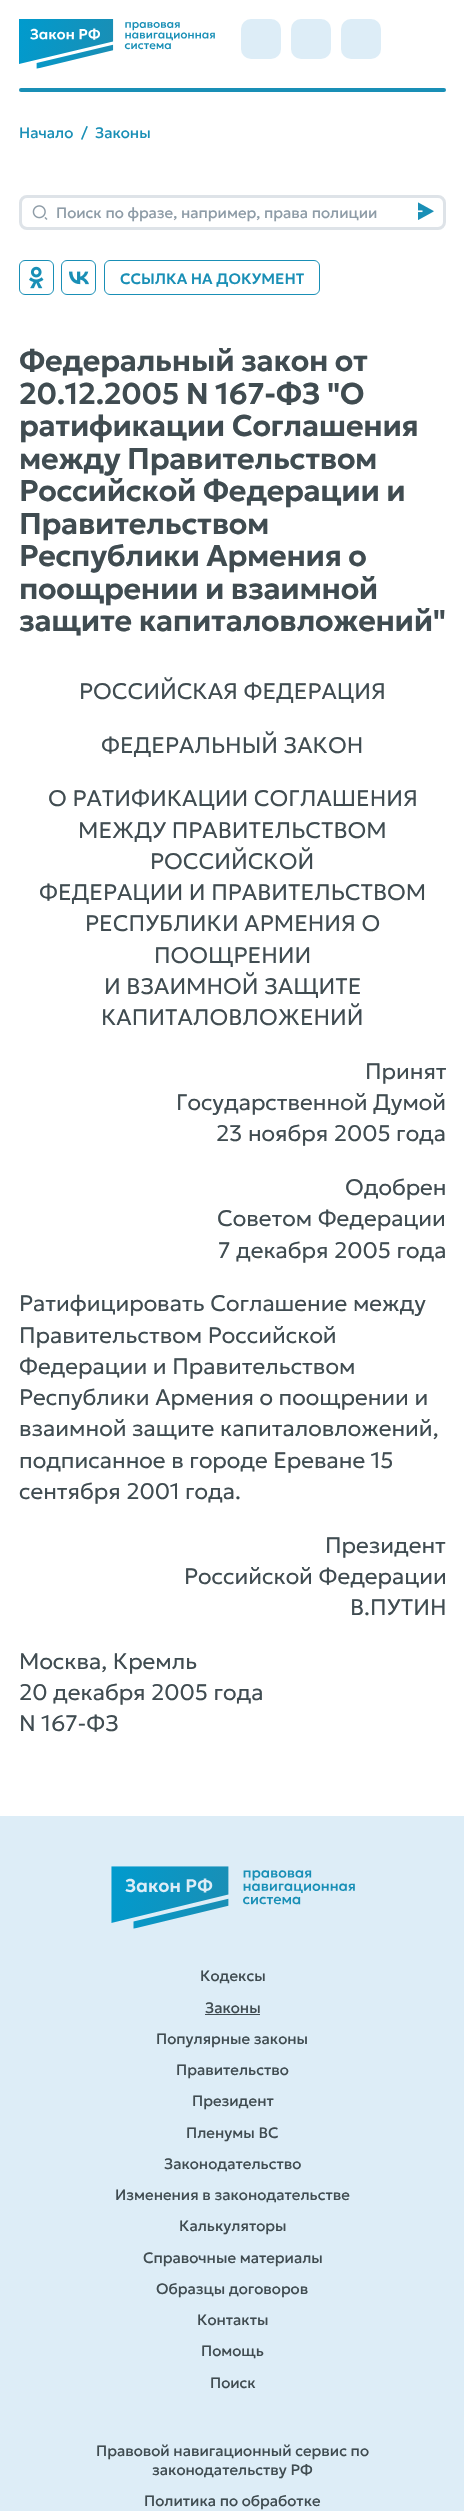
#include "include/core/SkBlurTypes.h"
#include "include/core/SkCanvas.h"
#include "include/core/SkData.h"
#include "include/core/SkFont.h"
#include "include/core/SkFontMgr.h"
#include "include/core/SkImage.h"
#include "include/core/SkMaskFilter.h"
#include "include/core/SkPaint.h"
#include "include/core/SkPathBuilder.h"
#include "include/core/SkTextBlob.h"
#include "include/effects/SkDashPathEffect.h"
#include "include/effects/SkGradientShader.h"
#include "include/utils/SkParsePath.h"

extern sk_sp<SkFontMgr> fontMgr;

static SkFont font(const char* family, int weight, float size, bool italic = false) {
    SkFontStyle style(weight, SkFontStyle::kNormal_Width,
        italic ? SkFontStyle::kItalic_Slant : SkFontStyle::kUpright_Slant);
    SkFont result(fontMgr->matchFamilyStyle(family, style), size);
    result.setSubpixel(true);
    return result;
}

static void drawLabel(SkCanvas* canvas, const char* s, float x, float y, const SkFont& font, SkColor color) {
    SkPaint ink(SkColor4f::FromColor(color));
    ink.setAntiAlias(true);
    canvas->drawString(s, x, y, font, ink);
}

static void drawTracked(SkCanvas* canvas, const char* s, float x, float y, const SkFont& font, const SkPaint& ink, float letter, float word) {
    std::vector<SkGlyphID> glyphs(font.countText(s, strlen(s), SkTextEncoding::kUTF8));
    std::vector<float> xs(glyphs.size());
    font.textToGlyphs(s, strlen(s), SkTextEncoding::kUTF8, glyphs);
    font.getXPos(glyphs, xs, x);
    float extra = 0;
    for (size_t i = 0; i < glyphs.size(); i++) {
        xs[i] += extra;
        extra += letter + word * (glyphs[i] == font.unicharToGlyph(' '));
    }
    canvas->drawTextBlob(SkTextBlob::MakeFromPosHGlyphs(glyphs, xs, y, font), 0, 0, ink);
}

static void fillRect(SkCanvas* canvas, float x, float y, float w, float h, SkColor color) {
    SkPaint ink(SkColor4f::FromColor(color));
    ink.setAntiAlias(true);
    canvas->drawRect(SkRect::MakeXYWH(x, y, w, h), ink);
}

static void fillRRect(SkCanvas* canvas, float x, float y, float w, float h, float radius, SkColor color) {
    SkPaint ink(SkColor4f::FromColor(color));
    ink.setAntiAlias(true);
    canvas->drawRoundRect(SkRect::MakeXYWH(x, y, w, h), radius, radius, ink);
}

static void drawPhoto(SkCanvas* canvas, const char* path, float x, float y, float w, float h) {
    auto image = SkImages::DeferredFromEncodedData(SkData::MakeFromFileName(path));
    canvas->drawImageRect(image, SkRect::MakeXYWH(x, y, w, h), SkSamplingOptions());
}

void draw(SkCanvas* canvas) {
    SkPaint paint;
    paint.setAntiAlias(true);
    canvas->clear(0xFFFFFFFF);
    drawPhoto(canvas, "assets/img1.png", 19, 19, 196, 50);
    fillRRect(canvas, 241, 19, 40, 40, 10, 0xFFDDEDF7);
    fillRRect(canvas, 291, 19, 40, 40, 10, 0xFFDDEDF7);
    fillRRect(canvas, 341, 19, 40, 40, 10, 0xFFDDEDF7);
    fillRRect(canvas, 19, 88, 427, 4, 2, 0xFF198FB6);
    SkFont font1 = font("Geologica", 400, 15);
    drawLabel(canvas, "Начало", 19, 138, font1, 0xFF198FB6);
    drawLabel(canvas, "/", 81, 138, font1, 0xFF198FB6);
    drawLabel(canvas, "Законы", 95, 138, font1, 0xFF198FB6);
    drawPhoto(canvas, "assets/img2.png", 32, 205, 16, 15);
    paint.setStroke(true);
    paint.setStrokeWidth(3);
    paint.setColor(0xFFDEE3E8);
    canvas->drawRoundRect(SkRect::MakeXYWH(20.5f, 196.5f, 424, 32), 6.5f, 6.5f, paint);
    drawLabel(canvas, "Поиск по фразе, например, права полиции", 56, 218, font1, 0xFF8E9CA7);
    drawPhoto(canvas, "assets/img3.png", 418, 202, 16, 18);
    drawPhoto(canvas, "assets/img4.png", 29, 266, 15, 23);
    paint.setStrokeWidth(1);
    paint.setColor(0xFF198FB6);
    canvas->drawRoundRect(SkRect::MakeXYWH(19.5f, 260.5f, 34, 34), 5.5f, 5.5f, paint);
    drawPhoto(canvas, "assets/img5.png", 69, 271, 20, 14);
    canvas->drawRoundRect(SkRect::MakeXYWH(61.5f, 260.5f, 34, 34), 5.5f, 5.5f, paint);
    canvas->drawRoundRect(SkRect::MakeXYWH(104.5f, 260.5f, 215, 34), 5.5f, 5.5f, paint);
    SkFont font2 = font("Geologica", 500, 15);
    drawLabel(canvas, "ССЫЛКА НА ДОКУМЕНТ", 120, 284, font2, 0xFF198FB6);
    SkFont font3 = font("Geologica", 600, 30);
    paint.setStroke(false);
    paint.setColor(0xFF404C51);
    drawTracked(canvas, "Федеральный закон от", 19, 371, font3, paint, -0.3f, 0);
    drawTracked(canvas, "20.12.2005 N 167-ФЗ \"О", 19, 404, font3, paint, -0.3f, 0);
    drawTracked(canvas, "ратификации Соглашения", 19, 436, font3, paint, -0.3f, 0);
    drawTracked(canvas, "между Правительством", 19, 469, font3, paint, -0.3f, 0);
    drawTracked(canvas, "Российской Федерации и", 19, 501, font3, paint, -0.3f, 0);
    drawTracked(canvas, "Правительством", 19, 534, font3, paint, -0.3f, 0);
    drawTracked(canvas, "Республики Армения о", 19, 566, font3, paint, -0.3f, 0);
    drawTracked(canvas, "поощрении и взаимной", 19, 599, font3, paint, -0.3f, 0);
    drawTracked(canvas, "защите капиталовложений\"", 19, 631, font3, paint, -0.3f, 0);
    SkFont font4 = font("Geologica", 300, 22.5f);
    drawLabel(canvas, "РОССИЙСКАЯ ФЕДЕРАЦИЯ", 79, 699, font4, 0xFF404C51);
    drawLabel(canvas, "ФЕДЕРАЛЬНЫЙ ЗАКОН", 101, 753, font4, 0xFF404C51);
    drawLabel(canvas, "О РАТИФИКАЦИИ СОГЛАШЕНИЯ", 48, 806, font4, 0xFF404C51);
    drawLabel(canvas, "МЕЖДУ ПРАВИТЕЛЬСТВОМ", 78, 838, font4, 0xFF404C51);
    drawLabel(canvas, "РОССИЙСКОЙ", 150, 869, font4, 0xFF404C51);
    drawLabel(canvas, "ФЕДЕРАЦИИ И ПРАВИТЕЛЬСТВОМ", 39, 900, font4, 0xFF404C51);
    drawLabel(canvas, "РЕСПУБЛИКИ АРМЕНИЯ О", 85, 931, font4, 0xFF404C51);
    drawLabel(canvas, "ПООЩРЕНИИ", 154, 963, font4, 0xFF404C51);
    drawLabel(canvas, "И ВЗАИМНОЙ ЗАЩИТЕ", 104, 994, font4, 0xFF404C51);
    drawLabel(canvas, "КАПИТАЛОВЛОЖЕНИЙ", 101, 1025, font4, 0xFF404C51);
    drawLabel(canvas, "Принят", 365, 1079, font4, 0xFF404C51);
    drawLabel(canvas, "Государственной Думой", 176, 1110, font4, 0xFF404C51);
    drawLabel(canvas, "23 ноября 2005 года", 216, 1141, font4, 0xFF404C51);
    drawLabel(canvas, "Одобрен", 345, 1195, font4, 0xFF404C51);
    drawLabel(canvas, "Советом Федерации", 217, 1226, font4, 0xFF404C51);
    drawLabel(canvas, "7 декабря 2005 года", 218, 1258, font4, 0xFF404C51);
    drawLabel(canvas, "Ратифицировать Соглашение между", 19, 1311, font4, 0xFF404C51);
    drawLabel(canvas, "Правительством Российской", 19, 1343, font4, 0xFF404C51);
    drawLabel(canvas, "Федерации и Правительством", 19, 1374, font4, 0xFF404C51);
    drawLabel(canvas, "Республики Армения о поощрении и", 19, 1405, font4, 0xFF404C51);
    drawLabel(canvas, "взаимной защите капиталовложений,", 19, 1436, font4, 0xFF404C51);
    drawLabel(canvas, "подписанное в городе Ереване 15", 19, 1468, font4, 0xFF404C51);
    drawLabel(canvas, "сентября 2001 года.", 19, 1499, font4, 0xFF404C51);
    drawLabel(canvas, "Президент", 325, 1553, font4, 0xFF404C51);
    drawLabel(canvas, "Российской Федерации", 184, 1584, font4, 0xFF404C51);
    drawLabel(canvas, "В.ПУТИН", 350, 1615, font4, 0xFF404C51);
    drawLabel(canvas, "Москва, Кремль", 19, 1669, font4, 0xFF404C51);
    drawLabel(canvas, "20 декабря 2005 года", 19, 1700, font4, 0xFF404C51);
    drawLabel(canvas, "N 167-ФЗ", 19, 1731, font4, 0xFF404C51);
    fillRect(canvas, 0, 1816, 464, 695, 0xFFDDEDF7);
    drawPhoto(canvas, "assets/img6.png", 111, 1866, 244, 63);
    drawLabel(canvas, "Кодексы", 200, 1981, font1, 0xFF404C51);
    drawLabel(canvas, "Законы", 205, 2013, font1, 0xFF404C51);
    fillRect(canvas, 205, 2014, 55, 1, 0xFF404C51);
    drawLabel(canvas, "Популярные законы", 156, 2044, font1, 0xFF404C51);
    drawLabel(canvas, "Правительство", 176, 2075, font1, 0xFF404C51);
    drawLabel(canvas, "Президент", 192, 2106, font1, 0xFF404C51);
    drawLabel(canvas, "Пленумы ВС", 186, 2138, font1, 0xFF404C51);
    drawLabel(canvas, "Законодательство", 164, 2169, font1, 0xFF404C51);
    drawLabel(canvas, "Изменения в законодательстве", 115, 2200, font1, 0xFF404C51);
    drawLabel(canvas, "Калькуляторы", 179, 2231, font1, 0xFF404C51);
    drawLabel(canvas, "Справочные материалы", 143, 2263, font1, 0xFF404C51);
    drawLabel(canvas, "Образцы договоров", 156, 2294, font1, 0xFF404C51);
    drawLabel(canvas, "Контакты", 197, 2325, font1, 0xFF404C51);
    drawLabel(canvas, "Помощь", 201, 2356, font1, 0xFF404C51);
    drawLabel(canvas, "Поиск", 210, 2388, font1, 0xFF404C51);
    drawLabel(canvas, "Правовой навигационный сервис по", 96, 2456, font1, 0xFF404C51);
    drawLabel(canvas, "законодательству РФ", 152, 2475, font1, 0xFF404C51);
    drawLabel(canvas, "Политика по обработке", 144, 2506, font1, 0xFF404C51);
}
